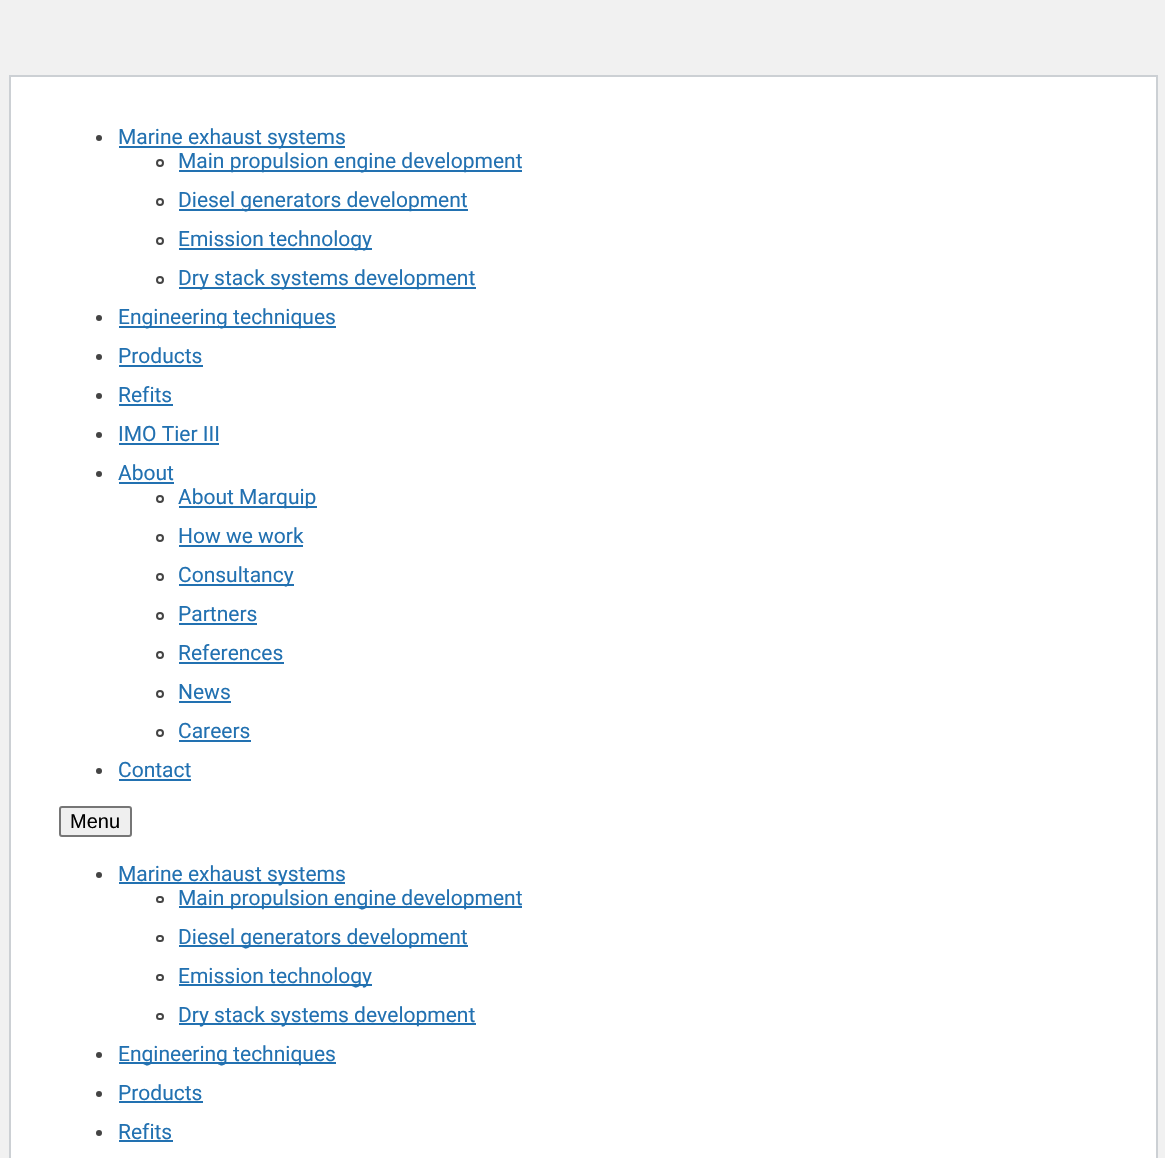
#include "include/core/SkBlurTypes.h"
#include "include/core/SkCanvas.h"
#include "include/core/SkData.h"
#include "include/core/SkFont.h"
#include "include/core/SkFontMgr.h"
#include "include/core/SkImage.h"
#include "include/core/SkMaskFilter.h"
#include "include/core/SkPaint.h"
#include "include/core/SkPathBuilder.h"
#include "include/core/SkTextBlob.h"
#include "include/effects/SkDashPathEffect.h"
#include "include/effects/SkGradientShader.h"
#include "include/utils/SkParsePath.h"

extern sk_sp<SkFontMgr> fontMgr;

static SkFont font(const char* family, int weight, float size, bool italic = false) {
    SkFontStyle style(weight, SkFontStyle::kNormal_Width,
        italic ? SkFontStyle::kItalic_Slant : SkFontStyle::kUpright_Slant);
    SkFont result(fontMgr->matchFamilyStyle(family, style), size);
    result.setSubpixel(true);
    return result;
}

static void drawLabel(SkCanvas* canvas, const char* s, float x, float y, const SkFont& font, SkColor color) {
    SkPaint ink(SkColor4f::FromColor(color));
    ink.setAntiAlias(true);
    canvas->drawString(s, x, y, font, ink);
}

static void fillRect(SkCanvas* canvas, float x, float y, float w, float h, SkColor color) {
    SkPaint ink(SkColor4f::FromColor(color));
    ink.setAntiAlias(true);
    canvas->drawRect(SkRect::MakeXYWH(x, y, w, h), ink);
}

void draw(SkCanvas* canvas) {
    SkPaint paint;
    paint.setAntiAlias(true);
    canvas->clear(0xFFF1F1F1);
    paint.setColor(0xFFFFFFFF);
    canvas->drawRect(SkRect::MakeXYWH(10, 76, 1147, 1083), paint);
    paint.setStroke(true);
    paint.setStrokeWidth(2);
    paint.setColor(0xFFCCD0D4);
    canvas->drawRect(SkRect::MakeXYWH(10, 76, 1147, 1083), paint);
    paint.setStroke(false);
    paint.setColor(0xFF444444);
    canvas->drawCircle(99, 138, 3, paint);
    fillRect(canvas, 119, 146, 226, 2, 0xFF2271B1);
    SkFont font1 = font("Roboto", 400, 21);
    drawLabel(canvas, "Marine exhaust systems", 118, 144, font1, 0xFF2271B1);
    paint.setStroke(true);
    canvas->drawCircle(160, 163, 3, paint);
    fillRect(canvas, 179, 170, 343, 2, 0xFF2271B1);
    drawLabel(canvas, "Main propulsion engine development", 178, 168, font1, 0xFF2271B1);
    canvas->drawCircle(160, 202, 3, paint);
    fillRect(canvas, 179, 209, 289, 2, 0xFF2271B1);
    drawLabel(canvas, "Diesel generators development", 178, 207, font1, 0xFF2271B1);
    canvas->drawCircle(160, 241, 3, paint);
    fillRect(canvas, 179, 248, 193, 2, 0xFF2271B1);
    drawLabel(canvas, "Emission technology", 178, 246, font1, 0xFF2271B1);
    canvas->drawCircle(160, 280, 3, paint);
    fillRect(canvas, 179, 287, 297, 2, 0xFF2271B1);
    drawLabel(canvas, "Dry stack systems development", 178, 285, font1, 0xFF2271B1);
    paint.setStroke(false);
    canvas->drawCircle(99, 318, 3, paint);
    fillRect(canvas, 119, 326, 217, 2, 0xFF2271B1);
    drawLabel(canvas, "Engineering techniques", 118, 324, font1, 0xFF2271B1);
    canvas->drawCircle(99, 357, 3, paint);
    drawLabel(canvas, "Products", 118, 363, font1, 0xFF2271B1);
    fillRect(canvas, 119, 365, 84, 2, 0xFF2271B1);
    canvas->drawCircle(99, 396, 3, paint);
    drawLabel(canvas, "Refits", 118, 402, font1, 0xFF2271B1);
    fillRect(canvas, 119, 404, 54, 2, 0xFF2271B1);
    canvas->drawCircle(99, 435, 3, paint);
    drawLabel(canvas, "IMO Tier III", 118, 441, font1, 0xFF2271B1);
    fillRect(canvas, 119, 443, 100, 2, 0xFF2271B1);
    canvas->drawCircle(99, 474, 3, paint);
    drawLabel(canvas, "About", 118, 480, font1, 0xFF2271B1);
    fillRect(canvas, 119, 482, 55, 2, 0xFF2271B1);
    paint.setStroke(true);
    canvas->drawCircle(160, 499, 3, paint);
    fillRect(canvas, 179, 506, 138, 2, 0xFF2271B1);
    drawLabel(canvas, "About Marquip", 178, 504, font1, 0xFF2271B1);
    canvas->drawCircle(160, 538, 3, paint);
    drawLabel(canvas, "How we work", 178, 543, font1, 0xFF2271B1);
    fillRect(canvas, 179, 545, 124, 2, 0xFF2271B1);
    canvas->drawCircle(160, 577, 3, paint);
    fillRect(canvas, 179, 584, 115, 2, 0xFF2271B1);
    drawLabel(canvas, "Consultancy", 178, 582, font1, 0xFF2271B1);
    canvas->drawCircle(160, 616, 3, paint);
    drawLabel(canvas, "Partners", 178, 621, font1, 0xFF2271B1);
    fillRect(canvas, 179, 623, 78, 2, 0xFF2271B1);
    canvas->drawCircle(160, 655, 3, paint);
    drawLabel(canvas, "References", 178, 660, font1, 0xFF2271B1);
    fillRect(canvas, 179, 662, 105, 2, 0xFF2271B1);
    canvas->drawCircle(160, 694, 3, paint);
    drawLabel(canvas, "News", 178, 699, font1, 0xFF2271B1);
    fillRect(canvas, 179, 701, 52, 2, 0xFF2271B1);
    canvas->drawCircle(160, 733, 3, paint);
    drawLabel(canvas, "Careers", 178, 738, font1, 0xFF2271B1);
    fillRect(canvas, 179, 740, 72, 2, 0xFF2271B1);
    paint.setStroke(false);
    canvas->drawCircle(99, 771, 3, paint);
    drawLabel(canvas, "Contact", 118, 777, font1, 0xFF2271B1);
    fillRect(canvas, 119, 779, 72, 2, 0xFF2271B1);
    paint.setColor(0xFFEFEFEF);
    canvas->drawRoundRect(SkRect::MakeXYWH(60, 807, 71, 29), 2, 2, paint);
    paint.setStroke(true);
    paint.setColor(0xFF767676);
    canvas->drawRoundRect(SkRect::MakeXYWH(60, 807, 71, 29), 2, 2, paint);
    SkFont font2 = font("Liberation Sans", 400, 20);
    drawLabel(canvas, "Menu", 70, 828, font2, 0xFF000000);
    paint.setStroke(false);
    paint.setColor(0xFF444444);
    canvas->drawCircle(99, 875, 3, paint);
    fillRect(canvas, 119, 882, 226, 2, 0xFF2271B1);
    drawLabel(canvas, "Marine exhaust systems", 118, 881, font1, 0xFF2271B1);
    paint.setStroke(true);
    canvas->drawRoundRect(SkRect::MakeXYWH(157, 897, 6, 5), 2.5f, 2.5f, paint);
    fillRect(canvas, 179, 906, 343, 2, 0xFF2271B1);
    drawLabel(canvas, "Main propulsion engine development", 178, 905, font1, 0xFF2271B1);
    canvas->drawRoundRect(SkRect::MakeXYWH(157, 936, 6, 5), 2.5f, 2.5f, paint);
    fillRect(canvas, 179, 945, 289, 2, 0xFF2271B1);
    drawLabel(canvas, "Diesel generators development", 178, 944, font1, 0xFF2271B1);
    canvas->drawRoundRect(SkRect::MakeXYWH(157, 975, 6, 5), 2.5f, 2.5f, paint);
    fillRect(canvas, 179, 984, 193, 2, 0xFF2271B1);
    drawLabel(canvas, "Emission technology", 178, 983, font1, 0xFF2271B1);
    canvas->drawRoundRect(SkRect::MakeXYWH(157, 1014, 6, 5), 2.5f, 2.5f, paint);
    fillRect(canvas, 179, 1023, 297, 2, 0xFF2271B1);
    drawLabel(canvas, "Dry stack systems development", 178, 1022, font1, 0xFF2271B1);
    paint.setStroke(false);
    canvas->drawCircle(99, 1055, 3, paint);
    fillRect(canvas, 119, 1062, 217, 2, 0xFF2271B1);
    drawLabel(canvas, "Engineering techniques", 118, 1061, font1, 0xFF2271B1);
    canvas->drawCircle(99, 1094, 3, paint);
    drawLabel(canvas, "Products", 118, 1100, font1, 0xFF2271B1);
    fillRect(canvas, 119, 1101, 84, 2, 0xFF2271B1);
    canvas->drawCircle(99, 1133, 3, paint);
    drawLabel(canvas, "Refits", 118, 1139, font1, 0xFF2271B1);
    fillRect(canvas, 119, 1140, 54, 2, 0xFF2271B1);
}
